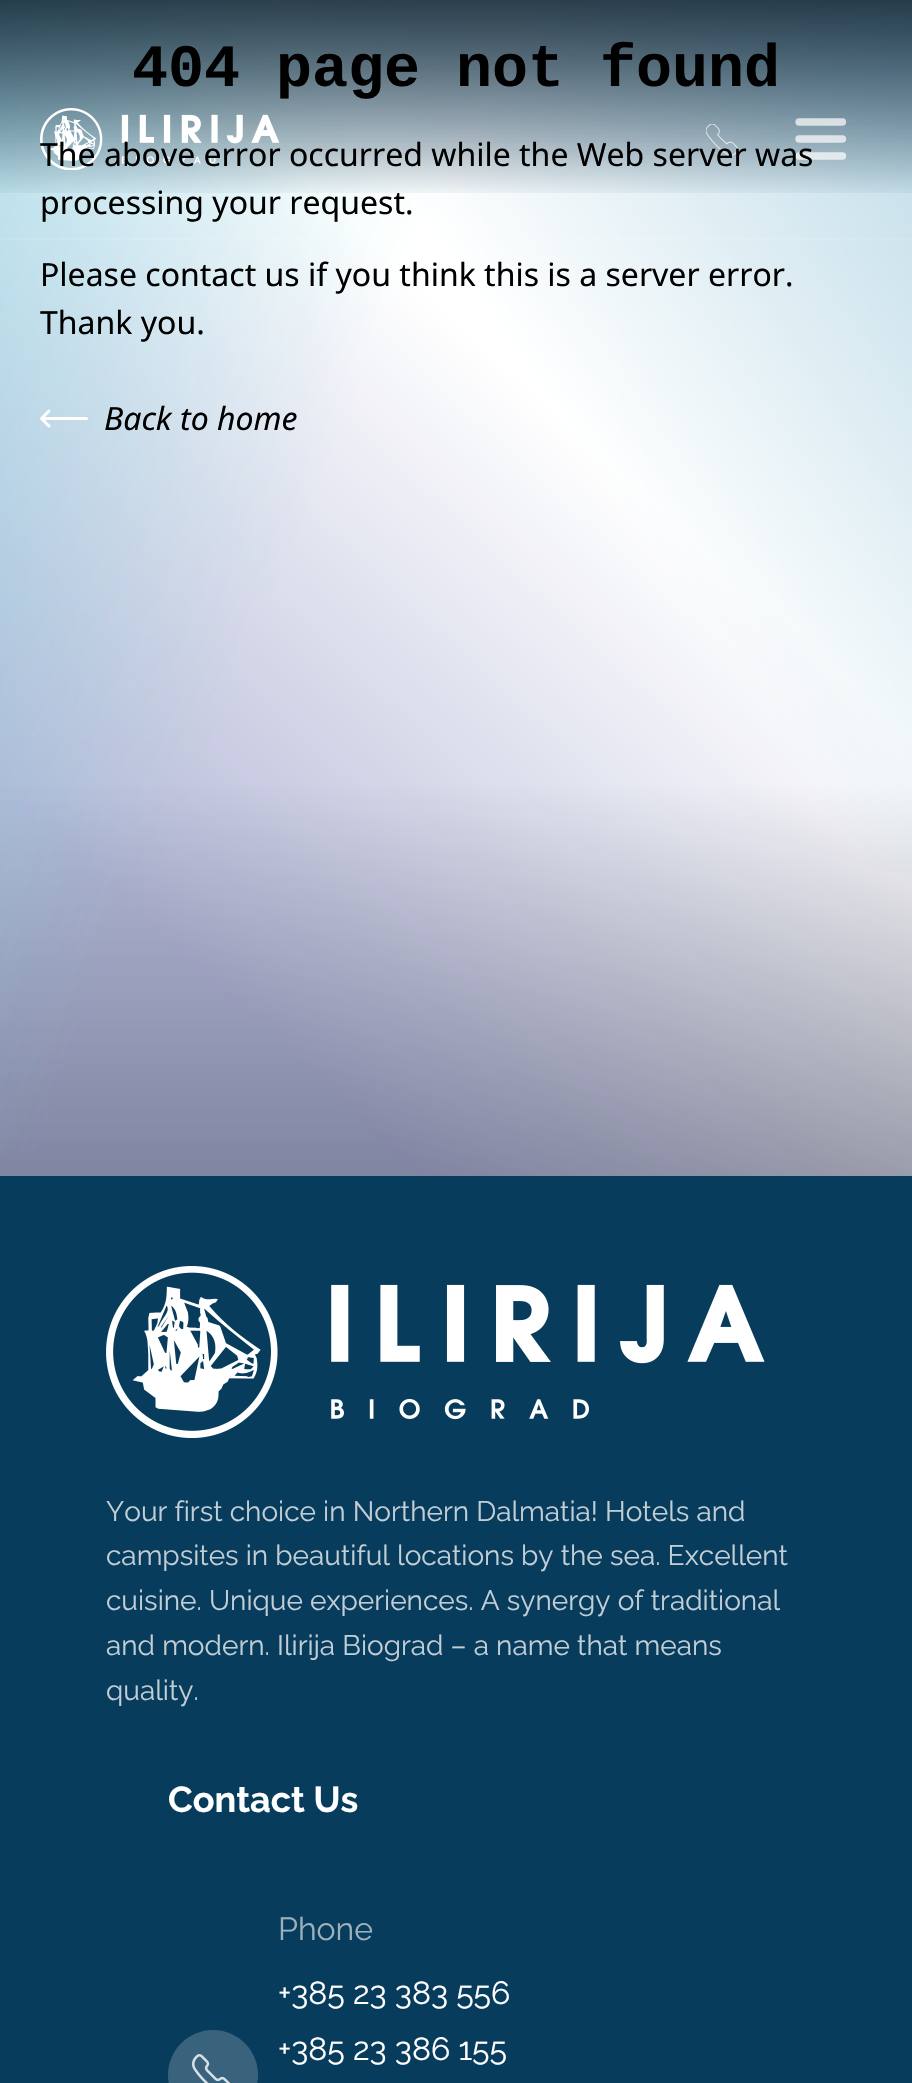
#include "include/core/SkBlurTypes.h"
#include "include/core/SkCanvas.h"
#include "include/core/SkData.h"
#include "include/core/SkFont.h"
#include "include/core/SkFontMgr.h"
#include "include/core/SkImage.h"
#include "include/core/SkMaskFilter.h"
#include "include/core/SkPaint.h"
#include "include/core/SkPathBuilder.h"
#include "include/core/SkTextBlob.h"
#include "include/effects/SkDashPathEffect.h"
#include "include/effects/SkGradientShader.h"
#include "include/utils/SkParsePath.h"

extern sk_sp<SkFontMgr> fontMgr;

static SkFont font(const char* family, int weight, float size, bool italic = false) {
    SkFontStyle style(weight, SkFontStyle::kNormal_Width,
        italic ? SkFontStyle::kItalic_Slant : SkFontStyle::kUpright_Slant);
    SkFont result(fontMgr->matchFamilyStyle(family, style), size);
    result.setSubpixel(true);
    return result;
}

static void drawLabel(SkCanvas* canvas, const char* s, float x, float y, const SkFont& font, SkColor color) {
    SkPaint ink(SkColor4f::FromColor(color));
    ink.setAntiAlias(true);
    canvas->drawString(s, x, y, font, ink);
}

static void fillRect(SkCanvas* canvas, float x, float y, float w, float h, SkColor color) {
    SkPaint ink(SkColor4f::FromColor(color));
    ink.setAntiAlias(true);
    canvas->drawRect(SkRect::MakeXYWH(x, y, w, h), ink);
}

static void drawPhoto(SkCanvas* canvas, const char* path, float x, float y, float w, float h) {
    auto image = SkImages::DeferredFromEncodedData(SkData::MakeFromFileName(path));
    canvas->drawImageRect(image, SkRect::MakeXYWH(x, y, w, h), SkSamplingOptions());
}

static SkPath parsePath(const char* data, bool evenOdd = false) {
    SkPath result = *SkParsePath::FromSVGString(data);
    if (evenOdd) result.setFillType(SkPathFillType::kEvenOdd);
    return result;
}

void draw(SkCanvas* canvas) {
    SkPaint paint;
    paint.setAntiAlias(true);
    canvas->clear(0xFF083C5C);
    {
        const SkColor colors[] = {0xFFFFFFFF, 0xFFB3B3B3};
        const float stops[] = {0.79f, 1};
        const SkPoint ends[] = {{456, -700}, {456, 1176}};
        paint.setShader(SkGradientShader::MakeLinear(ends, colors, stops, 2, SkTileMode::kClamp));
        paint.setAlpha(255);
    }
    canvas->drawRect(SkRect::MakeXYWH(0, 0, 912, 1176), paint);
    {
        const SkColor colors[] = {0x000A197B, 0x4D0A197B};
        const float stops[] = {0.53f, 0.86f};
        const SkPoint ends[] = {{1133, -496}, {-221, 972}};
        paint.setShader(SkGradientShader::MakeLinear(ends, colors, stops, 2, SkTileMode::kClamp));
        paint.setAlpha(255);
    }
    canvas->drawRect(SkRect::MakeXYWH(0, 0, 912, 1176), paint);
    {
        const SkColor colors[] = {0x006ED7E3, 0x996ED7E3};
        const float stops[] = {0.52f, 1};
        const SkPoint ends[] = {{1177, 538}, {-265, -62}};
        paint.setShader(SkGradientShader::MakeLinear(ends, colors, stops, 2, SkTileMode::kClamp));
        paint.setAlpha(255);
    }
    canvas->drawRect(SkRect::MakeXYWH(0, 0, 492, 1153), paint);
    {
        const SkColor colors[] = {0x993C95B9, 0x003C95B9};
        const float stops[] = {0, 0.51f};
        const SkPoint ends[] = {{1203, -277}, {-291, 753}};
        paint.setShader(SkGradientShader::MakeLinear(ends, colors, stops, 2, SkTileMode::kClamp));
        paint.setAlpha(255);
    }
    canvas->drawRect(SkRect::MakeXYWH(311, 0, 601, 872), paint);
    {
        const SkColor colors[] = {0x991C659B, 0x001C659B};
        const float stops[] = {0, 1};
        const SkPoint ends[] = {{456, 0}, {456, 200}};
        paint.setShader(SkGradientShader::MakeLinear(ends, colors, stops, 2, SkTileMode::kClamp));
        paint.setAlpha(255);
    }
    canvas->drawRect(SkRect::MakeXYWH(0, 0, 912, 193), paint);
    {
        const SkColor colors[] = {0x99000000, 0x00000000};
        const float stops[] = {0, 1};
        const SkPoint ends[] = {{456, 0}, {456, 200}};
        paint.setShader(SkGradientShader::MakeLinear(ends, colors, stops, 2, SkTileMode::kClamp));
        paint.setAlpha(255);
    }
    canvas->drawRect(SkRect::MakeXYWH(0, 0, 912, 193), paint);
    fillRect(canvas, 0, 238, 912, 2, 0x1AFFFFFF);
    drawPhoto(canvas, "assets/img1.png", 40, 108, 240, 62);
    drawPhoto(canvas, "assets/img2.png", 706, 124, 32, 32);
    paint.setStroke(true);
    paint.setStrokeWidth(7.3f);
    paint.setStrokeCap(SkPaint::kRound_Cap);
    paint.setShader(nullptr);
    paint.setColor(0xB3FFFFFF);
    canvas->drawPath(parsePath("M799 122H842.5M799 139H842.5M799 156H842.5"), paint);
    SkFont font1 = font("Liberation Mono", 700, 60);
    drawLabel(canvas, "404 page not found", 132, 86, font1, 0xFF000000);
    SkFont font2 = font("Noto Sans", 400, 32);
    drawLabel(canvas, "The above error occurred while the Web server was", 40, 166, font2, 0xFF000000);
    drawLabel(canvas, "processing your request.", 40, 214, font2, 0xFF000000);
    drawLabel(canvas, "Please contact us if you think this is a server error.", 40, 286, font2, 0xFF000000);
    drawLabel(canvas, "Thank you.", 40, 334, font2, 0xFF000000);
    paint.setStrokeWidth(3);
    paint.setStrokeJoin(SkPaint::kRound_Join);
    paint.setColor(0xFFFFFFFF);
    canvas->drawPath(parsePath("M86.5 418.5H41.5M49 426L41.5 418.5L49 411"), paint);
    SkFont font3 = font("Noto Sans", 400, 32, true);
    drawLabel(canvas, "Back to home", 104, 430, font3, 0xFF000000);
    drawPhoto(canvas, "assets/img3.png", 106, 1266, 659, 172);
    SkFont font4 = font("Raleway", 400, 28);
    drawLabel(canvas, "Your first choice in Northern Dalmatia! Hotels and", 106, 1521, font4, 0xFFC1CED6);
    drawLabel(canvas, "campsites in beautiful locations by the sea. Excellent", 106, 1565, font4, 0xFFC1CED6);
    drawLabel(canvas, "cuisine. Unique experiences. A synergy of traditional", 106, 1610, font4, 0xFFC1CED6);
    drawLabel(canvas, "and modern. Ilirija Biograd – a name that means", 106, 1655, font4, 0xFFC1CED6);
    drawLabel(canvas, "quality.", 106, 1700, font4, 0xFFC1CED6);
    SkFont font5 = font("Raleway", 700, 36);
    drawLabel(canvas, "Contact Us", 168, 1812, font5, 0xFFFFFFFF);
    SkFont font6 = font("Raleway", 400, 32);
    drawLabel(canvas, "Phone", 278, 1940, font6, 0xFF9CB1BE);
    drawLabel(canvas, "+385 23 383 556", 278, 2004, font6, 0xFFFFFFFF);
    drawLabel(canvas, "+385 23 386 155", 278, 2060, font6, 0xFFFFFFFF);
    paint.setStroke(false);
    paint.setColor(0xFF39637D);
    canvas->drawCircle(213, 2075, 45, paint);
    drawPhoto(canvas, "assets/img4.png", 192, 2054, 38, 29);
}
